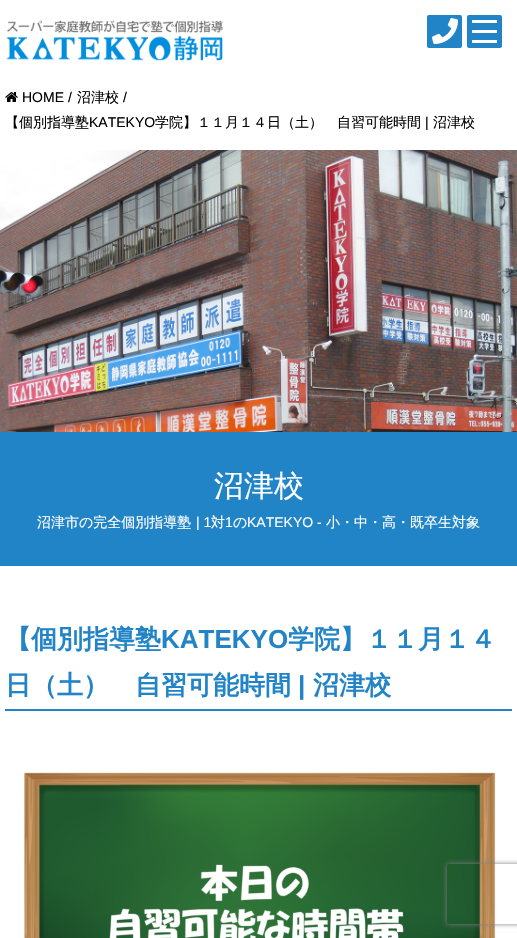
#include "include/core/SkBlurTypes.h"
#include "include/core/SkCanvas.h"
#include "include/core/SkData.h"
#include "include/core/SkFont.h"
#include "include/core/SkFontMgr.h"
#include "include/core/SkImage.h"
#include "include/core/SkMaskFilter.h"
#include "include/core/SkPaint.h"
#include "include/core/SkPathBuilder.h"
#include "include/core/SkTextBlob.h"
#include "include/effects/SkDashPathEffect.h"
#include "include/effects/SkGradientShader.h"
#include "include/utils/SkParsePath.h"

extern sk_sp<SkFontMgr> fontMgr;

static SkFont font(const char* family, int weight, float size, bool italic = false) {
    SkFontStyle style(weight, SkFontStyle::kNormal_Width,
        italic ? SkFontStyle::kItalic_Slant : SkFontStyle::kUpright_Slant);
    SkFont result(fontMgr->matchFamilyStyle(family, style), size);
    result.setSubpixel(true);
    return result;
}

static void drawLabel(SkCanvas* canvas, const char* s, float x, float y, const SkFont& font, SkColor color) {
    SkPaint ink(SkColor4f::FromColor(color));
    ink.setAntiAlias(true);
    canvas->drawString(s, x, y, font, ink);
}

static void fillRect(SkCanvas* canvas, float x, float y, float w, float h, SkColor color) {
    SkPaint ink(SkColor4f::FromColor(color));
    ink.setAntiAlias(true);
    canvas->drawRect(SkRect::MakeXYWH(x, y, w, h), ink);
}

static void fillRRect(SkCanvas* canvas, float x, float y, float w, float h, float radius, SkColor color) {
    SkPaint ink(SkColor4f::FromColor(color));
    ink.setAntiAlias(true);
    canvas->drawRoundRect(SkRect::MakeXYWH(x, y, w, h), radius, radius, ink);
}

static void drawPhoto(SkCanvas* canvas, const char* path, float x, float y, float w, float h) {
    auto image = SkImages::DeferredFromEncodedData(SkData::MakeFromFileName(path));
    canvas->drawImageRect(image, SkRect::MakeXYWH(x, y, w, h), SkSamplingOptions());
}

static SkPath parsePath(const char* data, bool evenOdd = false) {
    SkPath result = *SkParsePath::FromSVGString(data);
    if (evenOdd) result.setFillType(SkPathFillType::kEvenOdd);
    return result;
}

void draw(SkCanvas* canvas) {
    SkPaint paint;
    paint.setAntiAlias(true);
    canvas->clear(0xFFFFFFFF);
    fillRRect(canvas, 467, 15, 35, 33, 2, 0xFF2184C7);
    fillRect(canvas, 472, 20, 25, 3, 0xFFFFFFFF);
    fillRect(canvas, 472, 30, 25, 3, 0xFFFFFFFF);
    fillRect(canvas, 472, 40, 25, 3, 0xFFFFFFFF);
    drawPhoto(canvas, "assets/img1.png", 6, 20, 217, 41);
    fillRRect(canvas, 427, 15, 35, 33, 2, 0xFF2184C7);
    drawPhoto(canvas, "assets/img2.png", 432, 18, 26, 26);
    drawPhoto(canvas, "assets/img3.png", 5, 92, 13, 10);
    SkFont font1 = font("Liberation Sans", 400, 14);
    drawLabel(canvas, "HOME /", 22, 102, font1, 0xFF000000);
    SkFont font2 = font("WenQuanYi Zen Hei", 500, 14);
    drawLabel(canvas, "沼津校", 77, 102, font2, 0xFF000000);
    drawLabel(canvas, "/", 123, 102, font1, 0xFF000000);
    drawLabel(canvas, "【個別指導塾", 5, 127, font2, 0xFF000000);
    drawLabel(canvas, "KATEKYO", 89, 127, font1, 0xFF000000);
    drawLabel(canvas, "学院】１１月１４日（土）　自習可能時間", 155, 127, font2, 0xFF000000);
    drawLabel(canvas, "|", 425, 127, font1, 0xFF000000);
    drawLabel(canvas, "沼津校", 433, 127, font2, 0xFF000000);
    drawPhoto(canvas, "assets/img4.png", 0, 150, 517, 282);
    fillRect(canvas, 0, 432, 517, 134, 0xFF2184C7);
    SkFont font3 = font("WenQuanYi Zen Hei", 500, 30);
    drawLabel(canvas, "沼津校", 214, 496, font3, 0xFFFFFFFF);
    drawLabel(canvas, "沼津市の完全個別指導塾", 37, 527, font2, 0xFFFFFFFF);
    drawLabel(canvas, "| 1", 196, 527, font1, 0xFFFFFFFF);
    drawLabel(canvas, "対", 211, 527, font2, 0xFFFFFFFF);
    drawLabel(canvas, "1", 225, 527, font1, 0xFFFFFFFF);
    drawLabel(canvas, "の", 233, 527, font2, 0xFFFFFFFF);
    drawLabel(canvas, "KATEKYO -", 247, 527, font1, 0xFFFFFFFF);
    drawLabel(canvas, "小・中・高・既卒生対象", 326, 527, font2, 0xFFFFFFFF);
    fillRect(canvas, 5, 709, 507, 2, 0xFF2184C7);
    SkFont font4 = font("WenQuanYi Zen Hei", 700, 26);
    drawLabel(canvas, "【個別指導塾", 5, 648, font4, 0xFF2184C7);
    SkFont font5 = font("Liberation Sans", 700, 26);
    drawLabel(canvas, "KATEKYO", 161, 648, font5, 0xFF2184C7);
    drawLabel(canvas, "学院】１１月１４", 288, 648, font4, 0xFF2184C7);
    drawLabel(canvas, "日（土）　自習可能時間", 5, 694, font4, 0xFF2184C7);
    drawLabel(canvas, "|", 298, 694, font5, 0xFF2184C7);
    drawLabel(canvas, "沼津校", 313, 694, font4, 0xFF2184C7);
    drawPhoto(canvas, "assets/img5.png", 24, 772, 472, 166);
    canvas->save();
    canvas->clipPath(parsePath("M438 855H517V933H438ZM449 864H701C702 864 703 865 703 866V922C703 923 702 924 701 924H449C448 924 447 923 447 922V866C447 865 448 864 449 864Z", true), true);
    paint.setColor(0xFF808080);
    paint.setMaskFilter(SkMaskFilter::MakeBlur(kNormal_SkBlurStyle, 2.5f));
    canvas->drawRoundRect(SkRect::MakeXYWH(447, 864, 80, 60), 2, 2, paint);
    paint.setMaskFilter(nullptr);
    canvas->restore();
}
